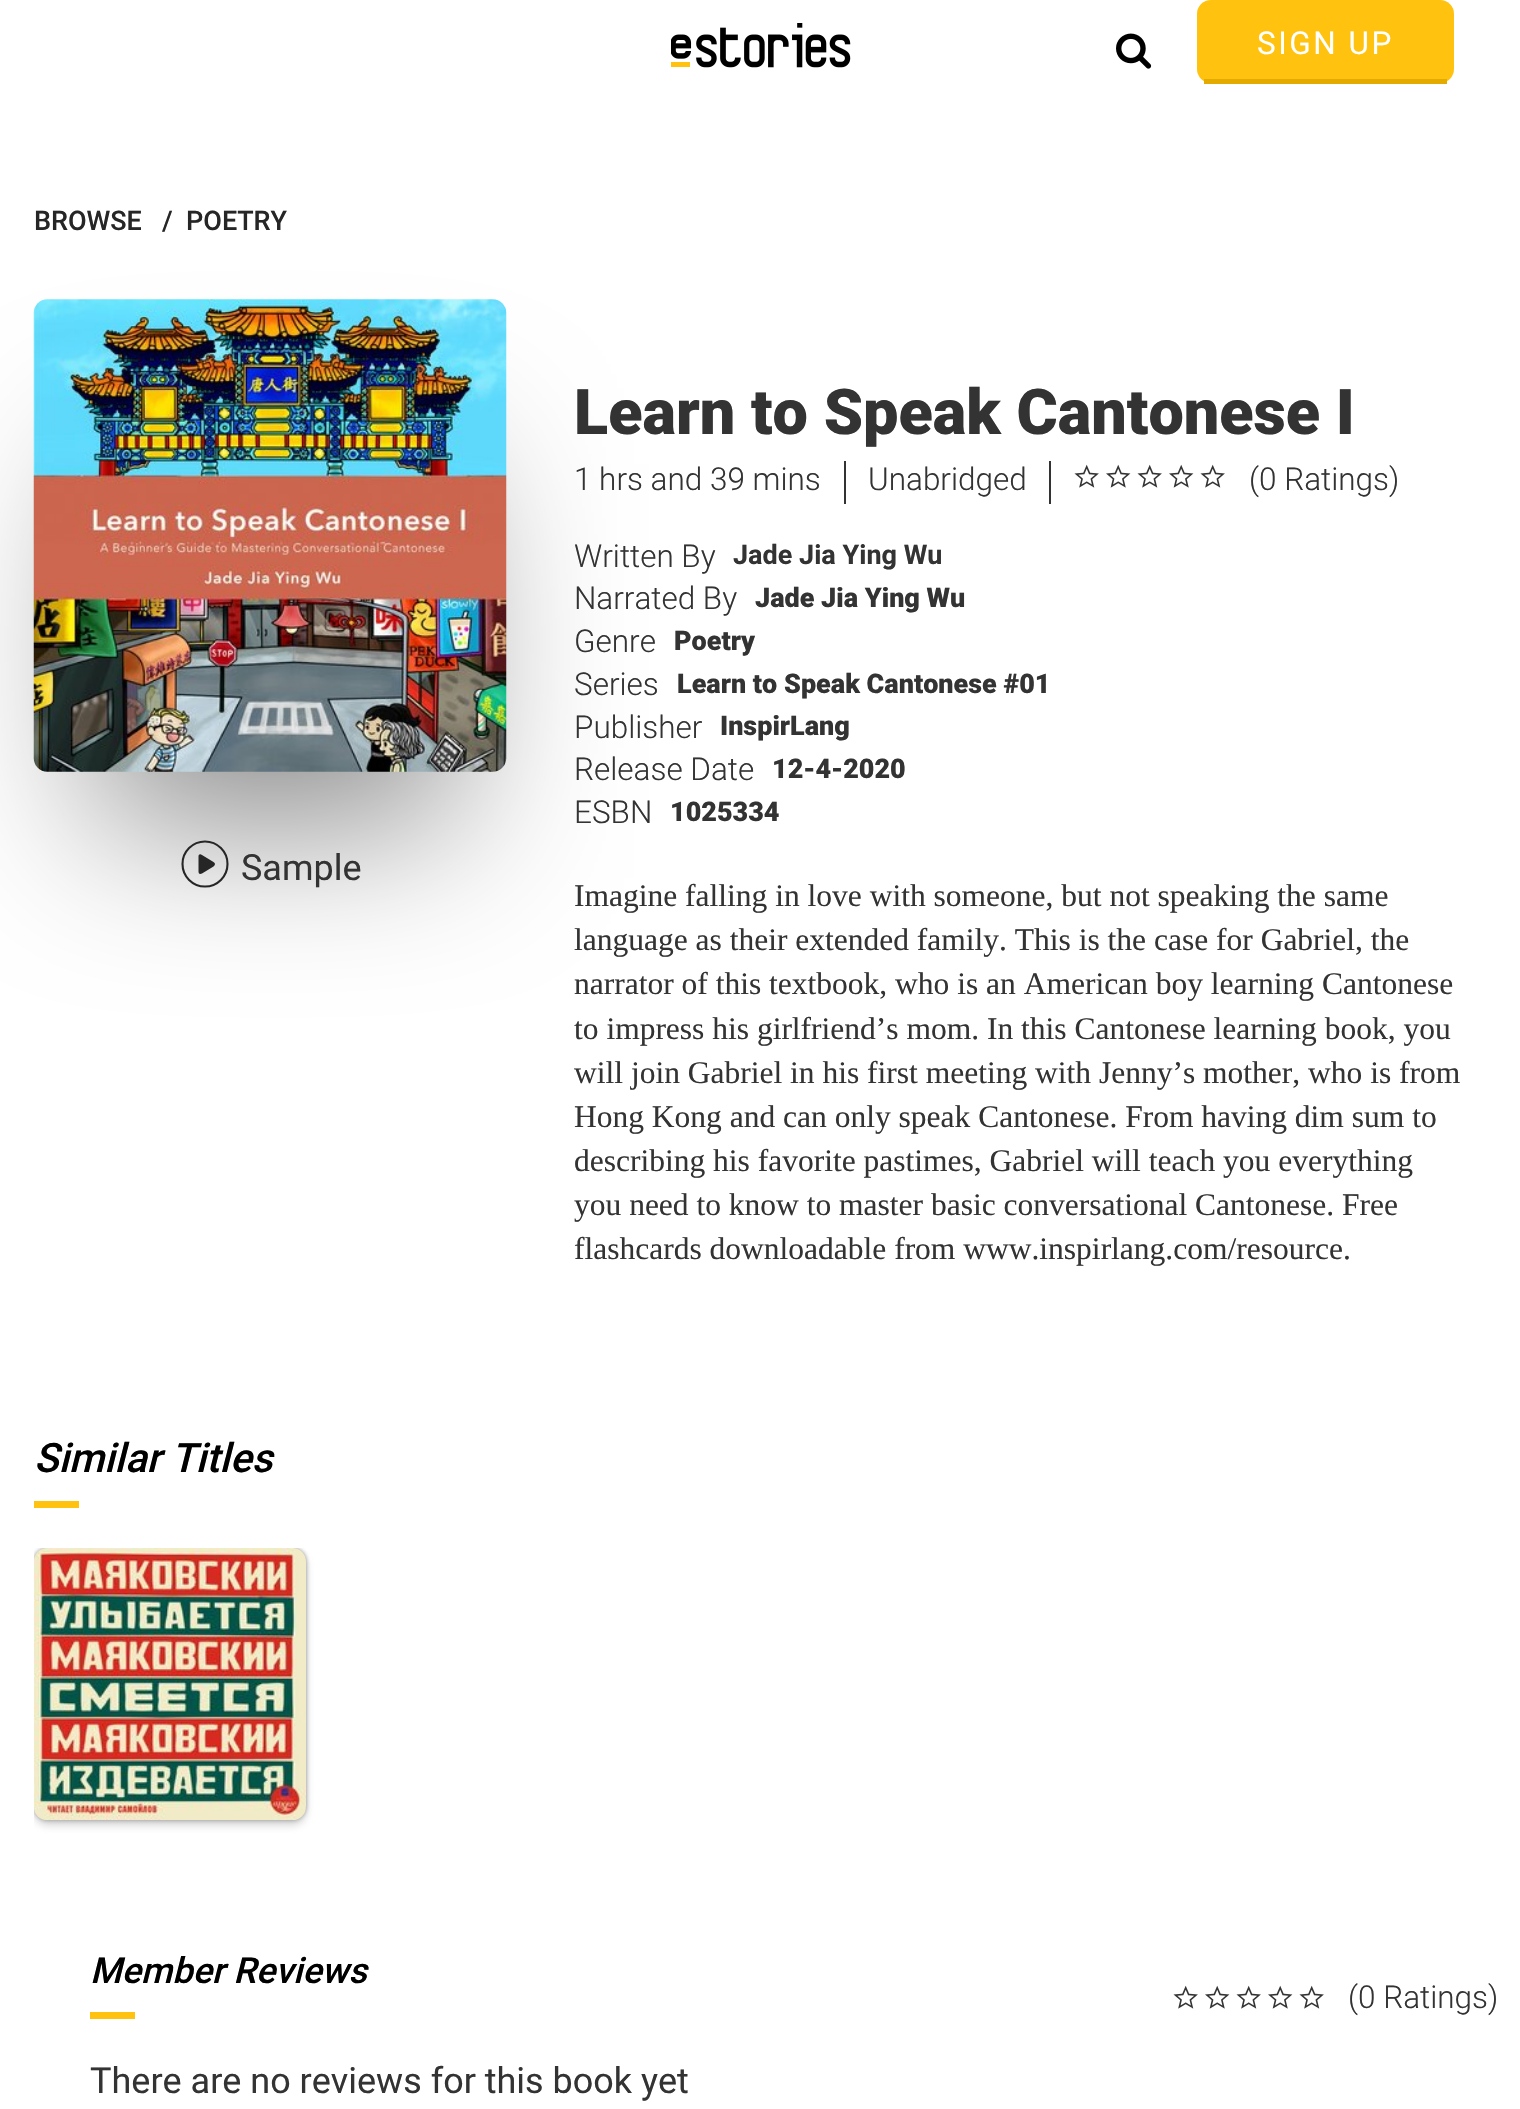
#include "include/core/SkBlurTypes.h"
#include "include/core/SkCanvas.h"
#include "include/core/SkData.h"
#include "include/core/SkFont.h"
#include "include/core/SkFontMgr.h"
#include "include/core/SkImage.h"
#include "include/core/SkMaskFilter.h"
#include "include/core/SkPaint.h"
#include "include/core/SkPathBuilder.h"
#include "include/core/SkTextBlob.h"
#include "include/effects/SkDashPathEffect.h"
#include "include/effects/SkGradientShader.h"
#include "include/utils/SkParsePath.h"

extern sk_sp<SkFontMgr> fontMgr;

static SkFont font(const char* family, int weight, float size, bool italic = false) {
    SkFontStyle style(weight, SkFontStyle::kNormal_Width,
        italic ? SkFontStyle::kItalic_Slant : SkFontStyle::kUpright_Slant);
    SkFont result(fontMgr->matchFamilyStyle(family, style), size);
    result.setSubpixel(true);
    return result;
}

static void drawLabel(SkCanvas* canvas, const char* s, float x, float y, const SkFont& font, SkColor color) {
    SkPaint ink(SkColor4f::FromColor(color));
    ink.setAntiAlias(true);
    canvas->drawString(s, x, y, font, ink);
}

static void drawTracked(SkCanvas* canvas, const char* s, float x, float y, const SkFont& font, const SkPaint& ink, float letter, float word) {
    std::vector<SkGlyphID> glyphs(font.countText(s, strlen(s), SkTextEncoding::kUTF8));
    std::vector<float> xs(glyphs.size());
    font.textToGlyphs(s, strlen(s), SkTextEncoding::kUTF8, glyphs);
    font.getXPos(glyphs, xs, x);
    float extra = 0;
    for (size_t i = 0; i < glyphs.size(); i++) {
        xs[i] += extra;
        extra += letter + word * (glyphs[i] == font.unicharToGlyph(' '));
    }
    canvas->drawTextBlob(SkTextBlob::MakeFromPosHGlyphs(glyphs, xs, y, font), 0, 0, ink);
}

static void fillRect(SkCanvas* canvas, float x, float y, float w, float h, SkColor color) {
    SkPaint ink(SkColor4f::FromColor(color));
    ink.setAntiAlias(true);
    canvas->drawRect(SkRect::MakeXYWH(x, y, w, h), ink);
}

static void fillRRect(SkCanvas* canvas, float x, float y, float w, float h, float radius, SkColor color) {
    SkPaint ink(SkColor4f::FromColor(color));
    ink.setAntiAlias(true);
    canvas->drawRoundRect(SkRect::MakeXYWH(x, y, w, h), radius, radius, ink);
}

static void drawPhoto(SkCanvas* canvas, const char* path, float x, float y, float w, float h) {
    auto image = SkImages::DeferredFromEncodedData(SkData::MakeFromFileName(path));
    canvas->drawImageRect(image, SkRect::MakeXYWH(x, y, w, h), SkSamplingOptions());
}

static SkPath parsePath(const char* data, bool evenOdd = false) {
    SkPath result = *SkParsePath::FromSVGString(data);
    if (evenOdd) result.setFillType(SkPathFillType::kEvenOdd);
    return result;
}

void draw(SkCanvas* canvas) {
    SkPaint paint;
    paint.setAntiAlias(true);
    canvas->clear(0xFFFFFFFF);
    drawPhoto(canvas, "assets/img1.png", 671, 23, 180, 45);
    drawPhoto(canvas, "assets/img2.png", 1116, 33, 36, 36);
    fillRRect(canvas, 1197, 0, 257, 83, 14, 0xFFFFC20E);
    fillRect(canvas, 1204, 79, 243, 5, 0xFFE3AB00);
    SkFont font1 = font("Roboto", 400, 31.5f);
    paint.setColor(0xFFFFFFFF);
    drawTracked(canvas, "SIGN UP", 1257, 54, font1, paint, 2.5f, 0);
    SkFont font2 = font("Roboto", 500, 27);
    drawLabel(canvas, "BROWSE", 34, 230, font2, 0xFF262626);
    drawLabel(canvas, "/", 162, 230, font2, 0xFF262626);
    drawLabel(canvas, "POETRY", 186, 230, font2, 0xFF262626);
    paint.setColor(0x73000000);
    paint.setMaskFilter(SkMaskFilter::MakeBlur(kNormal_SkBlurStyle, 81));
    canvas->drawRect(SkRect::MakeXYWH(95, 464, 360, 360), paint);
    paint.setMaskFilter(nullptr);
    drawPhoto(canvas, "assets/img3.png", 33, 299, 474, 473);
    paint.setStroke(true);
    paint.setStrokeWidth(2.1f);
    paint.setColor(0xFF262626);
    canvas->drawCircle(205, 864, 22.5f, paint);
    paint.setStroke(false);
    canvas->drawPath(parsePath("M202 873.5C200 874.5 198.5 874 198.5 871.5V856.5C198.5 854.5 200 853.5 202 855L213.5 862C215.5 863 215.5 865 213.5 866.5Z", true), paint);
    SkFont font3 = font("Roboto", 400, 36);
    drawLabel(canvas, "Sample", 241, 880, font3, 0xFF333333);
    SkFont font4 = font("Roboto", 900, 63);
    drawLabel(canvas, "Learn to Speak Cantonese I", 574, 434, font4, 0xFF333333);
    SkFont font5 = font("Roboto", 300, 31.5f);
    drawLabel(canvas, "1 hrs and 39 mins", 574, 490, font5, 0xFF333333);
    fillRect(canvas, 844, 461, 2, 43, 0xFF333333);
    drawLabel(canvas, "Unabridged", 868, 490, font5, 0xFF333333);
    fillRect(canvas, 1049, 461, 2, 43, 0xFF333333);
    drawPhoto(canvas, "assets/img4.png", 1074, 464, 25, 24);
    drawPhoto(canvas, "assets/img5.png", 1106, 464, 25, 24);
    drawPhoto(canvas, "assets/img4.png", 1137, 464, 25, 24);
    drawPhoto(canvas, "assets/img5.png", 1169, 464, 25, 24);
    drawPhoto(canvas, "assets/img4.png", 1200, 464, 25, 24);
    drawLabel(canvas, "(0 Ratings)", 1249, 490, font5, 0xFF333333);
    drawLabel(canvas, "Written By", 574, 567, font5, 0xFF333333);
    SkFont font6 = font("Roboto", 700, 27);
    drawLabel(canvas, "Jade Jia Ying Wu", 733, 564, font6, 0xFF333333);
    drawLabel(canvas, "Narrated By", 574, 609, font5, 0xFF333333);
    SkFont font7 = font("Roboto", 900, 27);
    drawLabel(canvas, "Jade Jia Ying Wu", 755, 607, font7, 0xFF333333);
    drawLabel(canvas, "Genre", 574, 652, font5, 0xFF333333);
    drawLabel(canvas, "Poetry", 674, 650, font7, 0xFF333333);
    drawLabel(canvas, "Series", 574, 695, font5, 0xFF333333);
    drawLabel(canvas, "Learn to Speak Cantonese #01", 677, 693, font7, 0xFF333333);
    drawLabel(canvas, "Publisher", 574, 738, font5, 0xFF333333);
    drawLabel(canvas, "InspirLang", 720, 735, font7, 0xFF333333);
    drawLabel(canvas, "Release Date", 574, 780, font5, 0xFF333333);
    drawLabel(canvas, "12-4-2020", 772, 778, font7, 0xFF333333);
    drawLabel(canvas, "ESBN", 574, 823, font5, 0xFF333333);
    drawLabel(canvas, "1025334", 670, 821, font7, 0xFF333333);
    SkFont font8 = font("Liberation Serif", 400, 31.5f);
    drawLabel(canvas, "Imagine falling in love with someone, but not speaking the same", 574, 906, font8, 0xFF333333);
    drawLabel(canvas, "language as their extended family. This is the case for Gabriel, the", 574, 950, font8, 0xFF333333);
    drawLabel(canvas, "narrator of this textbook, who is an American boy learning Cantonese", 574, 994, font8, 0xFF333333);
    drawLabel(canvas, "to impress his girlfriend’s mom. In this Cantonese learning book, you", 574, 1039, font8, 0xFF333333);
    drawLabel(canvas, "will join Gabriel in his first meeting with Jenny’s mother, who is from", 574, 1083, font8, 0xFF333333);
    drawLabel(canvas, "Hong Kong and can only speak Cantonese. From having dim sum to", 574, 1127, font8, 0xFF333333);
    drawLabel(canvas, "describing his favorite pastimes, Gabriel will teach you everything", 574, 1171, font8, 0xFF333333);
    drawLabel(canvas, "you need to know to master basic conversational Cantonese. Free", 574, 1215, font8, 0xFF333333);
    drawLabel(canvas, "flashcards downloadable from www.inspirlang.com/resource.", 574, 1259, font8, 0xFF333333);
    SkFont font9 = font("Roboto", 500, 40.5f, true);
    drawLabel(canvas, "Similar Titles", 34, 1472, font9, 0xFF000000);
    fillRect(canvas, 34, 1501, 45, 7, 0xFFFFC20E);
    canvas->save();
    canvas->clipRect(SkRect::MakeXYWH(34, 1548, 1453, 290));
    paint.setColor(0x801B1B1B);
    paint.setMaskFilter(SkMaskFilter::MakeBlur(kNormal_SkBlurStyle, 2));
    canvas->drawRoundRect(SkRect::MakeXYWH(34, 1548, 272, 272), 14, 14, paint);
    paint.setMaskFilter(nullptr);
    paint.setColor(0x80A5A5A5);
    paint.setMaskFilter(SkMaskFilter::MakeBlur(kNormal_SkBlurStyle, 4.5f));
    canvas->drawRoundRect(SkRect::MakeXYWH(34, 1553, 272, 272), 14, 14, paint);
    paint.setMaskFilter(nullptr);
    canvas->restore();
    drawPhoto(canvas, "assets/img6.png", 33, 1548, 273, 272);
    SkFont font10 = font("Roboto", 500, 36, true);
    drawLabel(canvas, "Member Reviews", 90, 1983, font10, 0xFF000000);
    fillRect(canvas, 90, 2012, 45, 7, 0xFFFFC20E);
    drawLabel(canvas, "There are no reviews for this book yet", 90, 2093, font3, 0xFF333333);
    drawPhoto(canvas, "assets/img4.png", 1173, 1985, 25, 24);
    drawPhoto(canvas, "assets/img5.png", 1205, 1985, 25, 24);
    drawPhoto(canvas, "assets/img4.png", 1236, 1985, 25, 24);
    drawPhoto(canvas, "assets/img5.png", 1268, 1985, 25, 24);
    drawPhoto(canvas, "assets/img4.png", 1299, 1985, 25, 24);
    drawLabel(canvas, "(0 Ratings)", 1348, 2008, font5, 0xFF333333);
}
